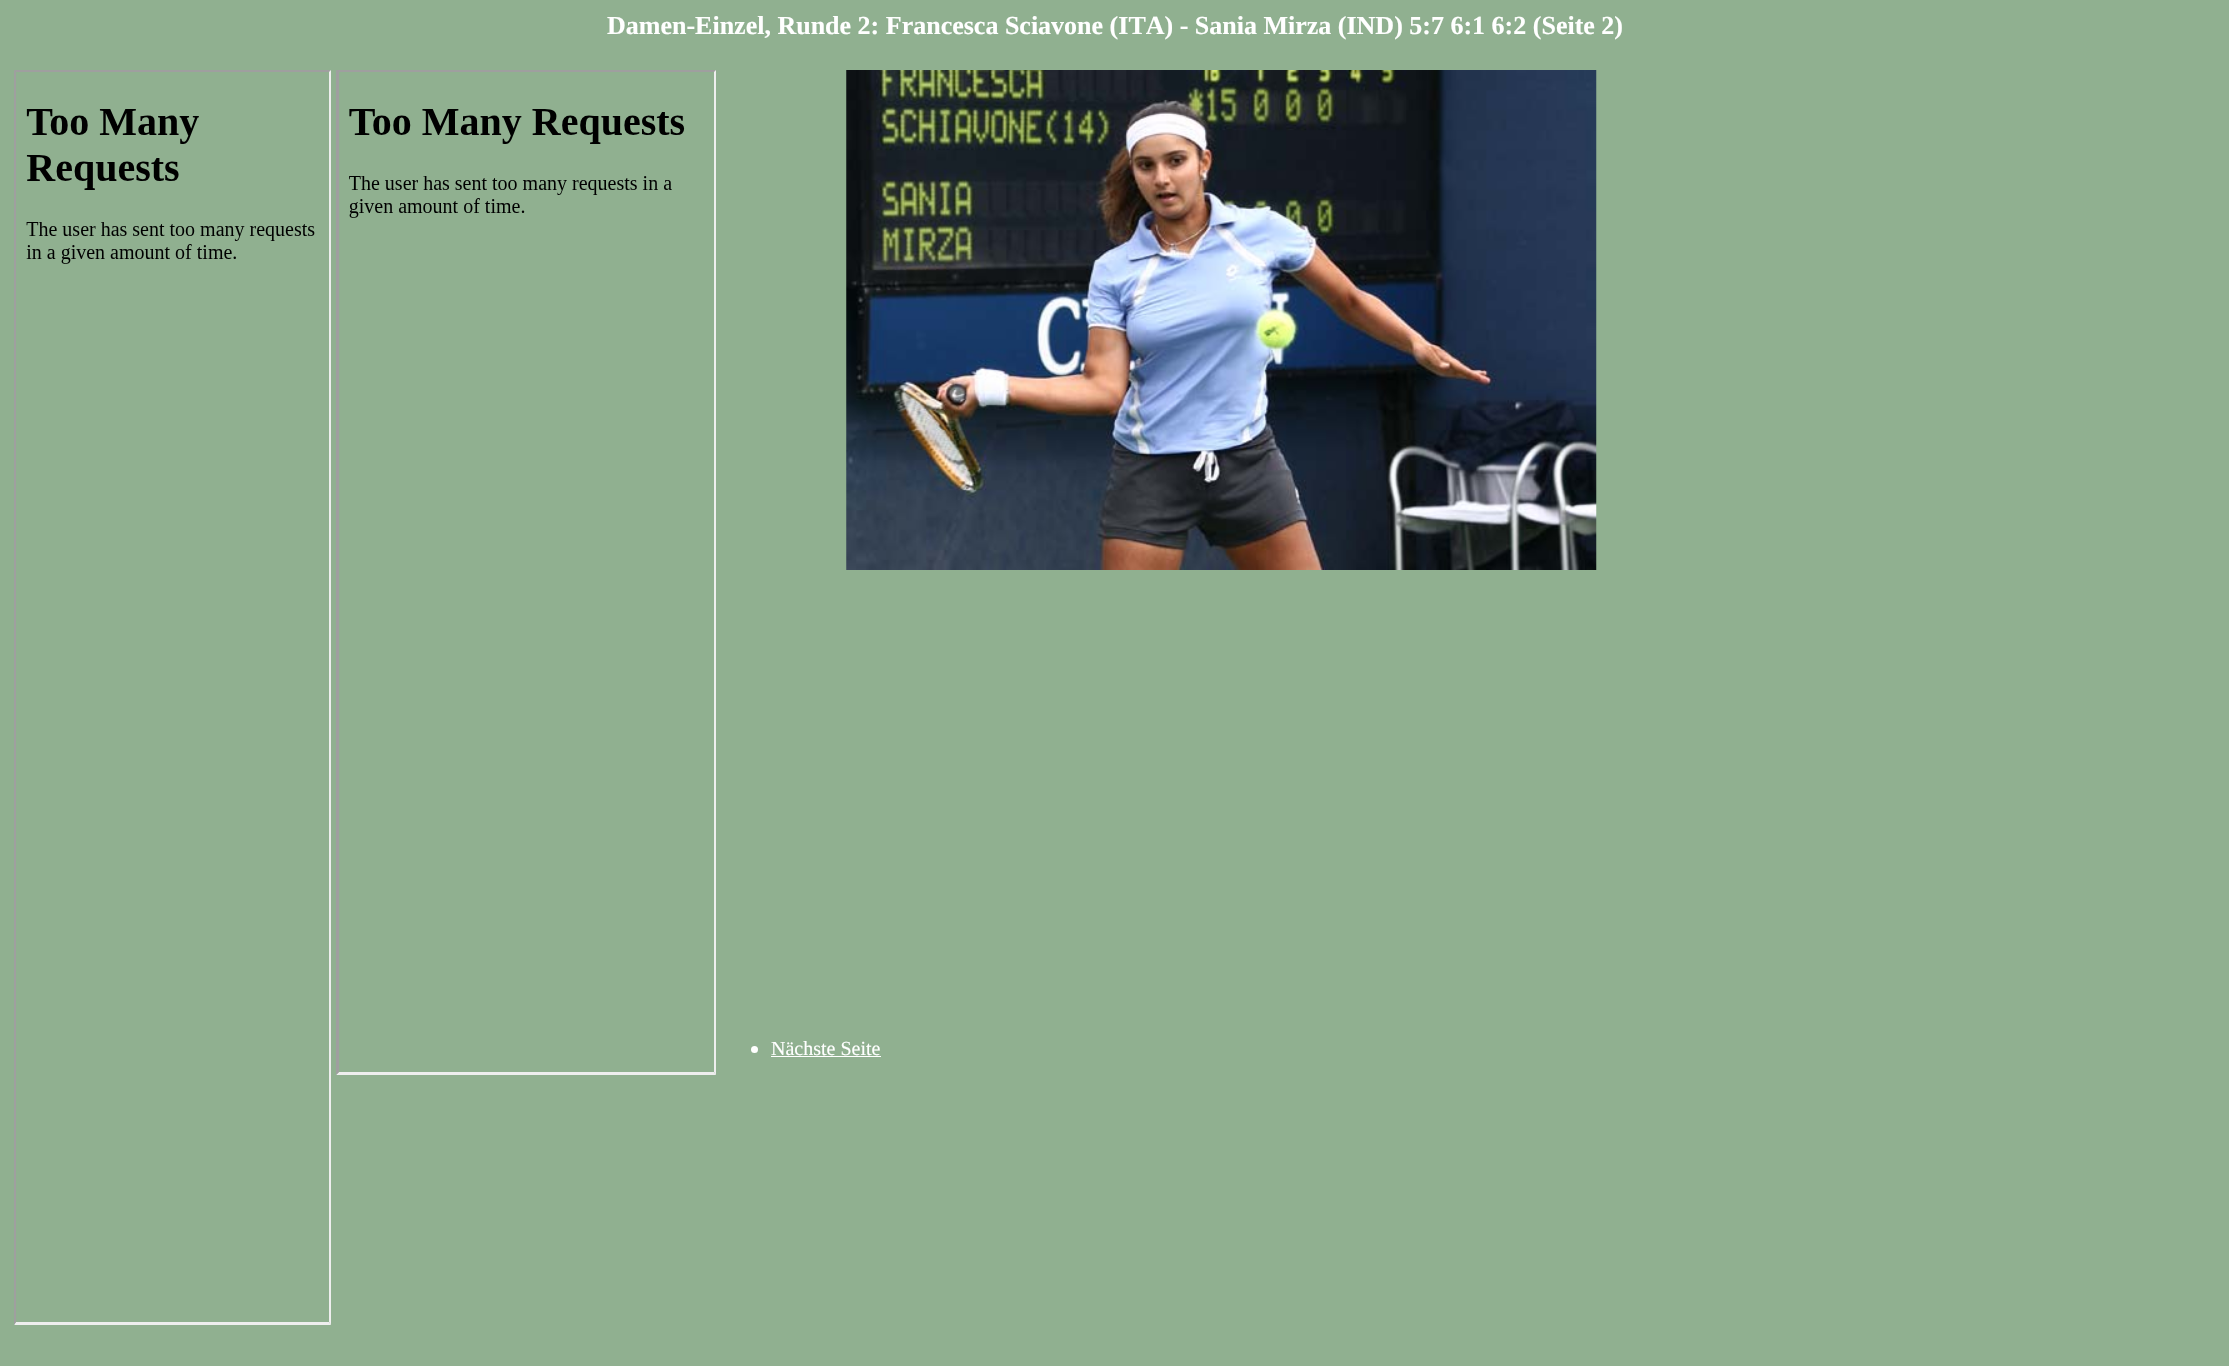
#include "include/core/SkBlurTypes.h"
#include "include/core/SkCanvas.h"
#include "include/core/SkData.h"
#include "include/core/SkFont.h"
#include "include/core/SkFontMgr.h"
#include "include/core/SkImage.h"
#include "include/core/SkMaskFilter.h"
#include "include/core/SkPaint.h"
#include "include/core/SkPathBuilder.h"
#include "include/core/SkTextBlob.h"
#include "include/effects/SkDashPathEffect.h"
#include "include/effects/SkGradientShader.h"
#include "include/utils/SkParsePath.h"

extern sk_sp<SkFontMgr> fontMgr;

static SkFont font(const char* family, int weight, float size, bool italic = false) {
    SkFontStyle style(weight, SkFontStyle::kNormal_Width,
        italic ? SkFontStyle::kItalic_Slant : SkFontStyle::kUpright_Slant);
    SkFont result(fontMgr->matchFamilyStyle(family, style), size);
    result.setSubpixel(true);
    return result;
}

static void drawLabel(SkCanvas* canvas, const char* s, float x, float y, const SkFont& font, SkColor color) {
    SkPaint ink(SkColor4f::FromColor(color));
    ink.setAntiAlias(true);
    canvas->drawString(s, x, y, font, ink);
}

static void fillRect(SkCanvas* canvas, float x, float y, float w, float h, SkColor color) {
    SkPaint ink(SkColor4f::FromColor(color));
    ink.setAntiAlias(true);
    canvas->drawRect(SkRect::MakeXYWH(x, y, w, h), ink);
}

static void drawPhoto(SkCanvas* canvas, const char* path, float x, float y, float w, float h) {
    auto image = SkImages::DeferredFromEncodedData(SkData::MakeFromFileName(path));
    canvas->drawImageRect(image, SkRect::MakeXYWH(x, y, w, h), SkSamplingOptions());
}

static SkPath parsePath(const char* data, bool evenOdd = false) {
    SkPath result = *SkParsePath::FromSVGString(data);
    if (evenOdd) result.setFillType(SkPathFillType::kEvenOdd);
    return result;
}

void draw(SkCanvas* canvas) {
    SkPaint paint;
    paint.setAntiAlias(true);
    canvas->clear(0xFF90B090);
    SkFont font1 = font("Liberation Serif", 700, 26);
    drawLabel(canvas, "Damen-Einzel, Runde 2: Francesca Sciavone (ITA) - Sania Mirza (IND) 5:7 6:1 6:2 (Seite 2)", 607, 34, font1, 0xFFFFFFFF);
    paint.setColor(0xFF9F9F9F);
    canvas->drawPath(parsePath("M14 70H331L329 72H16Z"), paint);
    paint.setColor(0xFFEEEEEE);
    canvas->drawPath(parsePath("M331 70V1325L329 1322V72Z"), paint);
    canvas->drawPath(parsePath("M331 1325H14L16 1322H329Z"), paint);
    paint.setColor(0xFF9F9F9F);
    canvas->drawPath(parsePath("M14 1325V70L16 72V1322Z"), paint);
    drawPhoto(canvas, "assets/img1.png", 26, 109, 289, 155);
    canvas->drawPath(parsePath("M336 70H716L714 72H339Z"), paint);
    paint.setColor(0xFFEEEEEE);
    canvas->drawPath(parsePath("M716 70V1075L714 1072V72Z"), paint);
    canvas->drawPath(parsePath("M716 1075H336L339 1072H714Z"), paint);
    paint.setColor(0xFF9F9F9F);
    canvas->drawPath(parsePath("M336 1075V70L339 72V1072Z"), paint);
    drawPhoto(canvas, "assets/img2.png", 349, 109, 336, 109);
    drawPhoto(canvas, "assets/img3.png", 846, 70, 751, 500);
    paint.setColor(0xFFFFFFFF);
    canvas->drawCircle(754.5f, 1049.5f, 3.5f, paint);
    SkFont font2 = font("Liberation Serif", 400, 20);
    drawLabel(canvas, "Nächste Seite", 771, 1055, font2, 0xFFFFFFFF);
    fillRect(canvas, 771, 1056, 110, 1, 0xFFFFFFFF);
}
